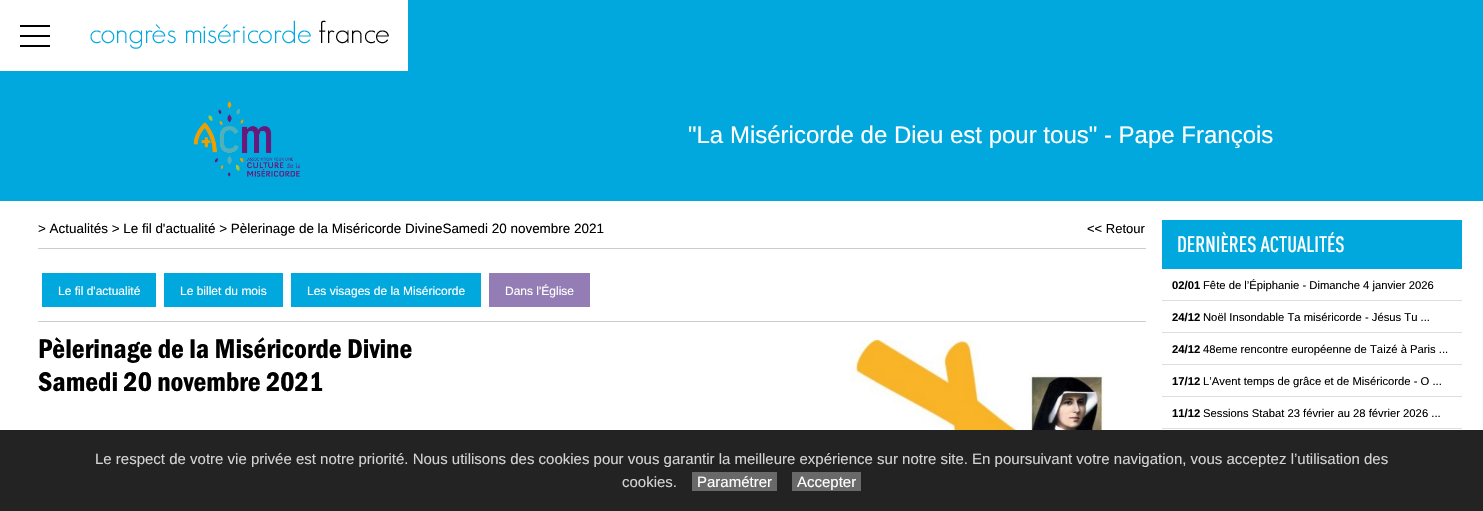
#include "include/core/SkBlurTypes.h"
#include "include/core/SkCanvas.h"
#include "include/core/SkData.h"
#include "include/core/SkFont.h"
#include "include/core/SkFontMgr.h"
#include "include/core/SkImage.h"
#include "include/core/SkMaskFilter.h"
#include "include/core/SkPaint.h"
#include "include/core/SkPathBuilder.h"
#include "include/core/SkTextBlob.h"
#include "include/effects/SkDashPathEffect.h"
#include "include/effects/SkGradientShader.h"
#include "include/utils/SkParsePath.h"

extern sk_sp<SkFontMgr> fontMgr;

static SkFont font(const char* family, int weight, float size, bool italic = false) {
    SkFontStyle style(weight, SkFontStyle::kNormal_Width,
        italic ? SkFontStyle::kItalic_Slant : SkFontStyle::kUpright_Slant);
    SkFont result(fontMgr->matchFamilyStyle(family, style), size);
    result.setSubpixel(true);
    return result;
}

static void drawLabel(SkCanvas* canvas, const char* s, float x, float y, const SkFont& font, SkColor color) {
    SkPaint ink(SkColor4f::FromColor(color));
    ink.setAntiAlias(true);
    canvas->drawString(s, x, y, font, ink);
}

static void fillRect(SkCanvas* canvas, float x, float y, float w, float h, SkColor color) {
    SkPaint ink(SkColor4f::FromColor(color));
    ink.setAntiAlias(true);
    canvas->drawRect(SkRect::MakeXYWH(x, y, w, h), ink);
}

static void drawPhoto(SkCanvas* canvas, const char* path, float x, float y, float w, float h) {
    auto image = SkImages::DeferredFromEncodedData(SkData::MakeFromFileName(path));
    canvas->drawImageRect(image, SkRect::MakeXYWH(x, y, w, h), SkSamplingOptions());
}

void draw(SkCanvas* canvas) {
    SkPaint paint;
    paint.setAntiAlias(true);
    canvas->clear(0xFFFFFFFF);
    fillRect(canvas, 408, 0, 1075, 71, 0xFF01A8DD);
    fillRect(canvas, 20, 25, 30, 2, 0xFF000000);
    fillRect(canvas, 20, 35, 30, 2, 0xFF000000);
    fillRect(canvas, 20, 45, 30, 2, 0xFF000000);
    drawPhoto(canvas, "assets/img1.png", 90, 20, 299, 29);
    fillRect(canvas, 0, 71, 1483, 130, 0xFF01A8DD);
    drawPhoto(canvas, "assets/img2.png", 193, 101, 108, 76);
    SkFont font1 = font("Liberation Sans", 400, 24);
    drawLabel(canvas, "\"La Miséricorde de Dieu est pour tous\" - Pape François", 688, 143, font1, 0xFFFFFFFF);
    SkFont font2 = font("Liberation Sans", 400, 13.45f);
    drawLabel(canvas, "> Actualités > Le fil d'actualité > Pèlerinage de la Miséricorde DivineSamedi 20 novembre 2021", 38, 233, font2, 0xFF000000);
    SkFont font3 = font("Liberation Sans", 400, 13);
    drawLabel(canvas, "<< Retour", 1087, 233, font3, 0xFF000000);
    fillRect(canvas, 38, 248, 1108, 1, 0xFFCCCCCC);
    fillRect(canvas, 42, 273, 114, 34, 0xFF01A8DD);
    SkFont font4 = font("Liberation Sans", 400, 12);
    drawLabel(canvas, "Le fil d'actualité", 58, 295, font4, 0xFFFFFFFF);
    fillRect(canvas, 164, 273, 119, 34, 0xFF01A8DD);
    drawLabel(canvas, "Le billet du mois", 180, 295, font4, 0xFFFFFFFF);
    fillRect(canvas, 291, 273, 190, 34, 0xFF01A8DD);
    drawLabel(canvas, "Les visages de la Miséricorde", 307, 295, font4, 0xFFFFFFFF);
    fillRect(canvas, 489, 273, 101, 34, 0xFF937DB4);
    drawLabel(canvas, "Dans l'Église", 505, 295, font4, 0xFFFFFFFF);
    fillRect(canvas, 38, 321, 1108, 1, 0xFFCCCCCC);
    SkFont font5 = font("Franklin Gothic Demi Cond", 400, 28);
    drawLabel(canvas, "Pèlerinage de la Miséricorde Divine", 38, 358, font5, 0xFF000000);
    drawLabel(canvas, "Samedi 20 novembre 2021", 38, 391, font5, 0xFF000000);
    drawPhoto(canvas, "assets/img3.png", 804, 340, 300, 90);
    fillRect(canvas, 1162, 220, 300, 49, 0xFF01A8DD);
    SkFont font6 = font("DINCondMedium", 500, 22);
    drawLabel(canvas, "DERNIÈRES ACTUALITÉS", 1177, 252, font6, 0xFFFFFFFF);
    fillRect(canvas, 1162, 300, 300, 1, 0xFFDEDEDE);
    SkFont font7 = font("Liberation Sans", 700, 11.25f);
    drawLabel(canvas, "02/01", 1172, 289, font7, 0xFF000000);
    SkFont font8 = font("Liberation Sans", 400, 11.25f);
    drawLabel(canvas, "Fête de l’Épiphanie - Dimanche 4 janvier 2026", 1203, 289, font8, 0xFF000000);
    fillRect(canvas, 1162, 332, 300, 1, 0xFFDEDEDE);
    drawLabel(canvas, "24/12", 1172, 321, font7, 0xFF000000);
    drawLabel(canvas, "Noël Insondable Ta miséricorde - Jésus Tu ...", 1203, 321, font8, 0xFF000000);
    fillRect(canvas, 1162, 364, 300, 1, 0xFFDEDEDE);
    drawLabel(canvas, "24/12", 1172, 353, font7, 0xFF000000);
    drawLabel(canvas, "48eme rencontre européenne de Taizé à Paris ...", 1203, 353, font8, 0xFF000000);
    fillRect(canvas, 1162, 396, 300, 1, 0xFFDEDEDE);
    drawLabel(canvas, "17/12", 1172, 385, font7, 0xFF000000);
    drawLabel(canvas, "L’Avent temps de grâce et de Miséricorde - O ...", 1203, 385, font8, 0xFF000000);
    fillRect(canvas, 1162, 428, 300, 1, 0xFFDEDEDE);
    drawLabel(canvas, "11/12", 1172, 417, font7, 0xFF000000);
    drawLabel(canvas, "Sessions Stabat 23 février au 28 février 2026 ...", 1203, 417, font8, 0xFF000000);
    fillRect(canvas, 0, 430, 1483, 81, 0xFF232323);
    SkFont font9 = font("Liberation Sans", 400, 15);
    drawLabel(canvas, "Le respect de votre vie privée est notre priorité. Nous utilisons des cookies pour vous garantir la meilleure expérience sur notre site. En poursuivant votre navigation, vous acceptez l’utilisation des", 95, 464, font9, 0xFFD3D3D3);
    drawLabel(canvas, "cookies.", 622, 487, font9, 0xFFD3D3D3);
    fillRect(canvas, 692, 472, 85, 19, 0xFF696969);
    drawLabel(canvas, "Paramétrer", 697, 487, font9, 0xFFFFFFFF);
    fillRect(canvas, 792, 472, 69, 19, 0xFF696969);
    drawLabel(canvas, "Accepter", 797, 487, font9, 0xFFFFFFFF);
}
